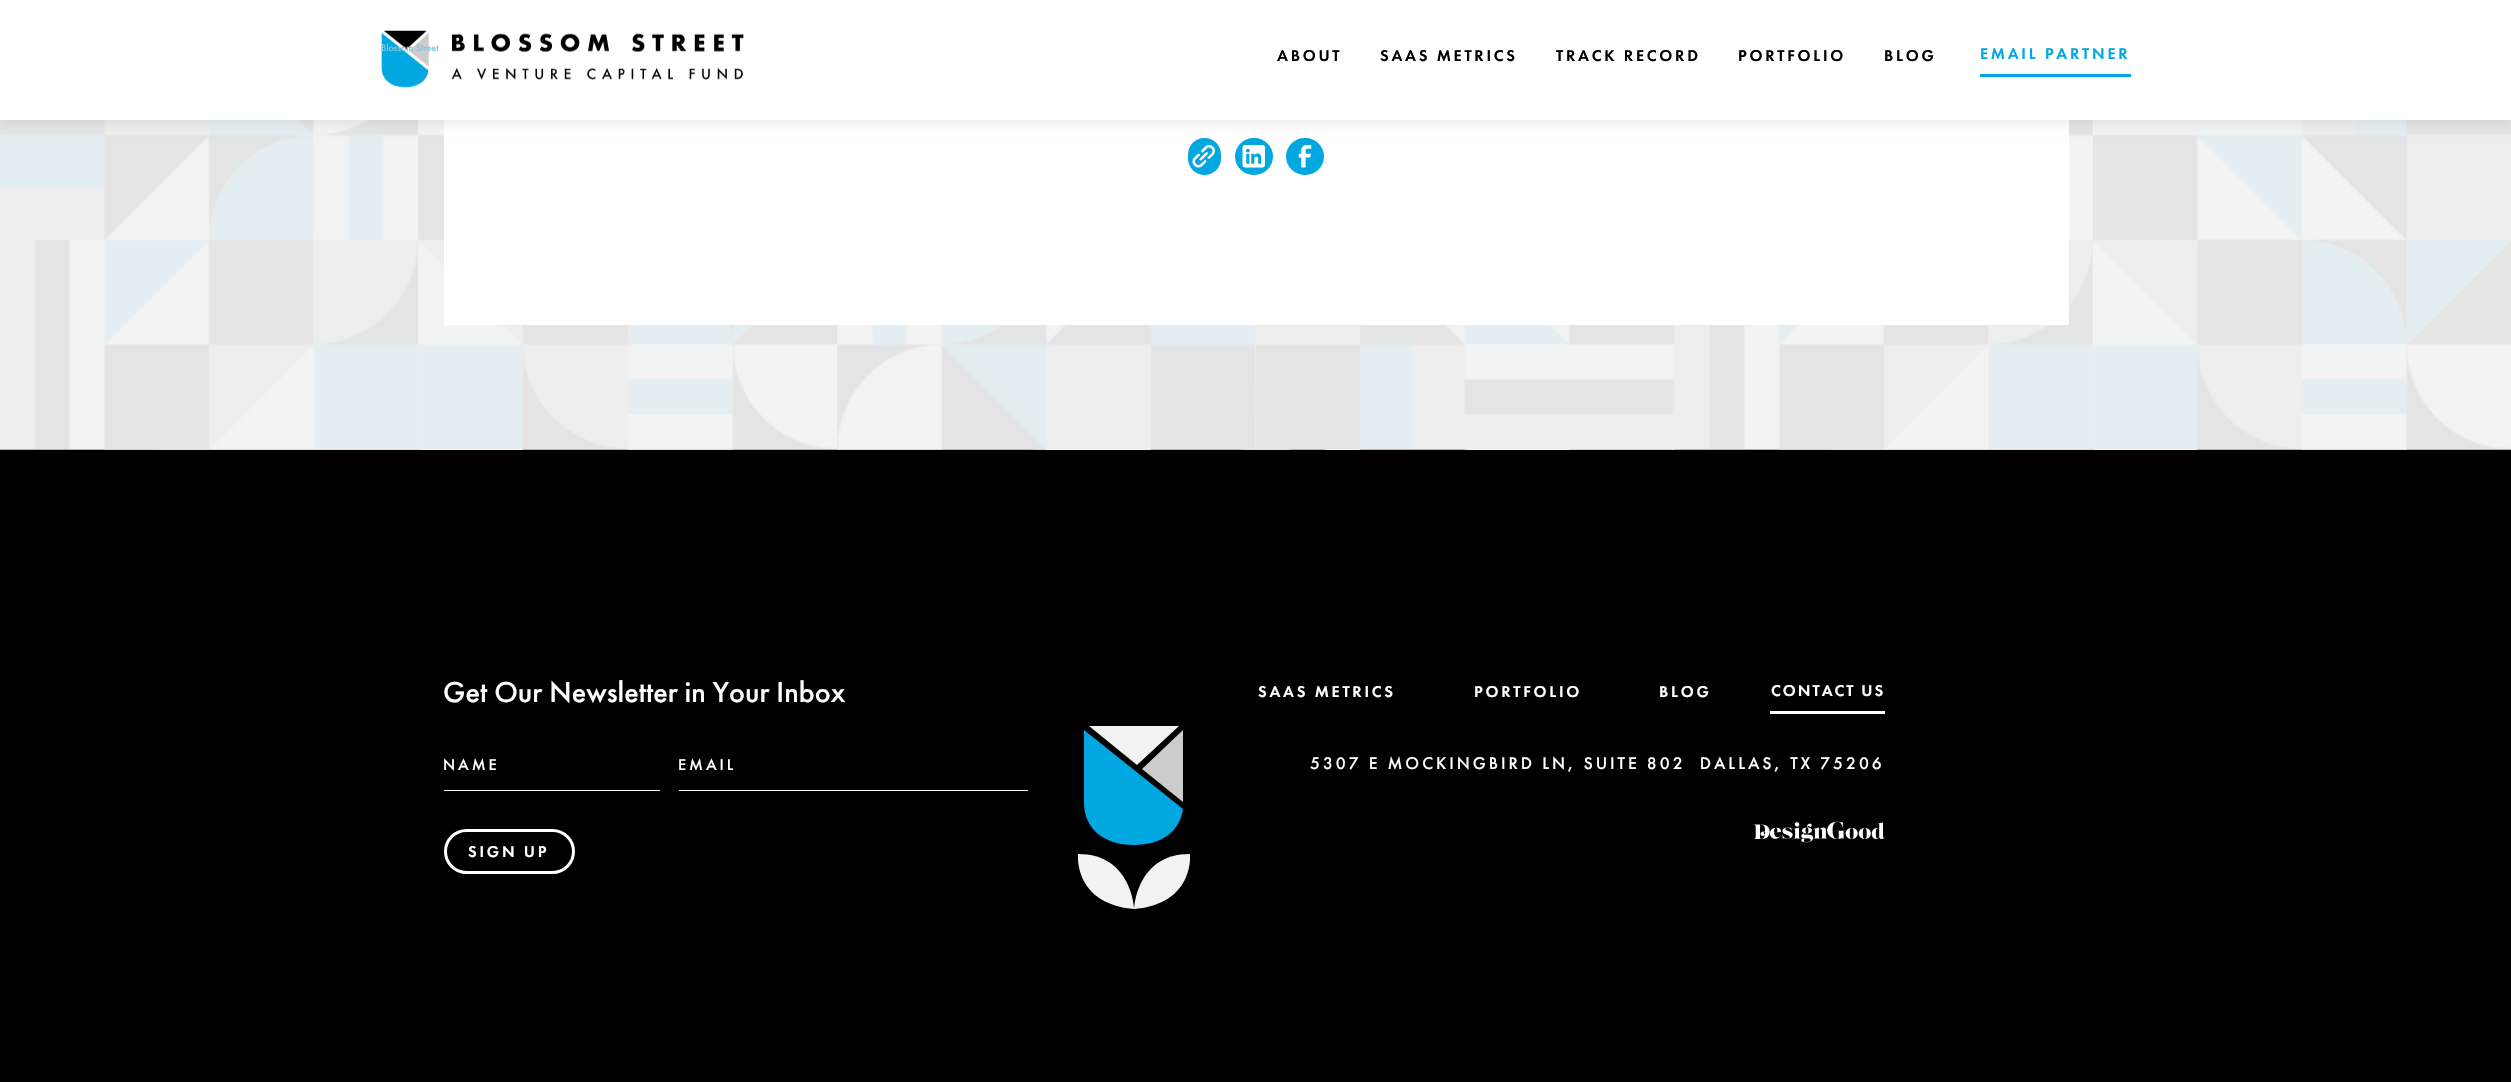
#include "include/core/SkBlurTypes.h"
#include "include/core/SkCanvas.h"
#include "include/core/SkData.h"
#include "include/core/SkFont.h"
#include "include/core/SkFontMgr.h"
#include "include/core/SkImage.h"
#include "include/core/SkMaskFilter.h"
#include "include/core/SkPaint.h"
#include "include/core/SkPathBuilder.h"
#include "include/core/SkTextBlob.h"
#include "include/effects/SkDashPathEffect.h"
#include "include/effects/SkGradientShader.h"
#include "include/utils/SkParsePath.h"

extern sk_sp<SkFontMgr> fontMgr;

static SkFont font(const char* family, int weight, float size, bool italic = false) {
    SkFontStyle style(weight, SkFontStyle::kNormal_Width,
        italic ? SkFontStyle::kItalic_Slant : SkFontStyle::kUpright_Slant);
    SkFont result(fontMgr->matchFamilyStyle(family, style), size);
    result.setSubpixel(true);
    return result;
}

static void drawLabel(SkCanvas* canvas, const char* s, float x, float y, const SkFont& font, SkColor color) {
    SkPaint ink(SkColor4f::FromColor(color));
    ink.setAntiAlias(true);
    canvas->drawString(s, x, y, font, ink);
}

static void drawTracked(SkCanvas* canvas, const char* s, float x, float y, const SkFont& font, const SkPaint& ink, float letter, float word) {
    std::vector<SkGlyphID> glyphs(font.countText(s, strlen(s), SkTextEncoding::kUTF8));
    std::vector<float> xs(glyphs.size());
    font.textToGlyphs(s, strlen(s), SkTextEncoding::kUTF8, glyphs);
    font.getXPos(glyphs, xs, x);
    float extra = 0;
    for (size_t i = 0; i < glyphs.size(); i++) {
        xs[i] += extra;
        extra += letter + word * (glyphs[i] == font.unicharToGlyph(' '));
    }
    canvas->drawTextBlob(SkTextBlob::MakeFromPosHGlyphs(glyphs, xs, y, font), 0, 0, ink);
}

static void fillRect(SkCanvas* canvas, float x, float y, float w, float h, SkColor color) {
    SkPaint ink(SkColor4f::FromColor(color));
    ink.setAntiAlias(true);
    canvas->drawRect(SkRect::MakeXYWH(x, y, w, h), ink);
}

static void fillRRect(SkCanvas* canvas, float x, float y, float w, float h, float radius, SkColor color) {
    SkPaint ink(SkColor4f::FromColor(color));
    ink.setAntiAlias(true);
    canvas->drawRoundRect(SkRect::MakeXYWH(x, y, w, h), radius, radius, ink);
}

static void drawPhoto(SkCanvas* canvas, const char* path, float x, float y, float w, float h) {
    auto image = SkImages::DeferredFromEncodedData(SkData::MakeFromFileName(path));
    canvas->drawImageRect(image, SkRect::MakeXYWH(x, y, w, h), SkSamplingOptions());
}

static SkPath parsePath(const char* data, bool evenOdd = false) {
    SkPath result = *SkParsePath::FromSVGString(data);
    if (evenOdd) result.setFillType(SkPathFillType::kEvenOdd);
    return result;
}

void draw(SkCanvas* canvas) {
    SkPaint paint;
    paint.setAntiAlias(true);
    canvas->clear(0xFFF2F2F2);
    drawPhoto(canvas, "assets/img2.png", 0, 120, 2511, 330);
    fillRect(canvas, 444, 120, 1625, 205, 0xFFFFFFFF);
    fillRRect(canvas, 1188, 138, 33, 37, 16.5f, 0xFF00A7E1);
    fillRRect(canvas, 1235, 138, 38, 37, 18.5f, 0xFF00A7E1);
    fillRRect(canvas, 1286, 138, 38, 37, 18.5f, 0xFF00A7E1);
    paint.setColor(0x14000000);
    paint.setMaskFilter(SkMaskFilter::MakeBlur(kNormal_SkBlurStyle, 6));
    canvas->drawRect(SkRect::MakeXYWH(0, 3, 2511, 120), paint);
    paint.setMaskFilter(nullptr);
    fillRect(canvas, 0, 0, 2511, 120, 0xFFFFFFFF);
    drawPhoto(canvas, "assets/img1.png", 381, 30, 363, 58);
    SkFont font1 = font("Futura PT", 500, 10);
    drawLabel(canvas, "Blossom Street", 381, 51, font1, 0xFF88C7DD);
    SkFont font2 = font("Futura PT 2", 500, 16.25f);
    paint.setColor(0xFF000000);
    drawTracked(canvas, "ABOUT", 1277, 61, font2, paint, 2.75f, 0);
    drawTracked(canvas, "SAAS METRICS", 1380, 61, font2, paint, 2.75f, 0);
    drawTracked(canvas, "TRACK RECORD", 1556, 61, font2, paint, 2.75f, 0);
    drawTracked(canvas, "PORTFOLIO", 1738, 61, font2, paint, 2.75f, 0);
    drawTracked(canvas, "BLOG", 1884, 61, font2, paint, 2.75f, 0);
    fillRect(canvas, 1980, 74, 151, 3, 0xFF00A7E1);
    paint.setColor(0xFF00A7E1);
    drawTracked(canvas, "EMAIL PARTNER", 1980, 59, font2, paint, 2.75f, 0);
    drawPhoto(canvas, "assets/img3.png", 1192, 145, 23, 23);
    drawPhoto(canvas, "assets/img4.png", 1242, 145, 23, 23);
    drawPhoto(canvas, "assets/img5.png", 1298, 145, 14, 23);
    fillRect(canvas, 0, 450, 2511, 632, 0xFF000000);
    SkFont font3 = font("Futura PT", 500, 30);
    drawLabel(canvas, "Get Our Newsletter in Your Inbox", 443, 702, font3, 0xFFFFFFFF);
    fillRect(canvas, 444, 790, 216, 1, 0xFFFFFFFF);
    SkFont font4 = font("Futura PT", 500, 16.25f);
    paint.setColor(0xFFFFFFFF);
    drawTracked(canvas, "NAME", 443, 770, font4, paint, 2.97f, 0);
    fillRect(canvas, 679, 790, 349, 1, 0xFFFFFFFF);
    drawTracked(canvas, "EMAIL", 678, 770, font4, paint, 2.97f, 0);
    paint.setStroke(true);
    paint.setStrokeWidth(3);
    canvas->drawRoundRect(SkRect::MakeXYWH(445.5f, 830.5f, 128, 42), 21, 21, paint);
    paint.setStroke(false);
    drawTracked(canvas, "SIGN UP", 468, 857, font2, paint, 2.75f, 0);
    canvas->save();
    canvas->clipRect(SkRect::MakeXYWH(1078, 726, 112, 183));
    paint.setColor(0xFFF2F2F2);
    canvas->drawPath(parsePath("M1134 909C1134 909 1136 854 1190 854C1190 854 1195 904 1134 909"), paint);
    canvas->drawPath(parsePath("M1134 909C1134 909 1132 854 1078 854C1078 854 1073 904 1134 909Z"), paint);
    canvas->restore();
    paint.setColor(0xFF00A7E1);
    canvas->drawPath(parsePath("M1084 803C1084 828 1103 845 1134 845C1162 845 1180 831 1183 809L1084 730Z"), paint);
    paint.setColor(0xFFCCCCCC);
    canvas->drawPath(parsePath("M1183 802V730L1142 769Z"), paint);
    paint.setColor(0xFFF2F2F2);
    canvas->drawPath(parsePath("M1179 726H1089L1137 765Z"), paint);
    paint.setColor(0xFFFFFFFF);
    drawTracked(canvas, "SAAS METRICS", 1258, 697, font2, paint, 2.75f, 0);
    drawTracked(canvas, "PORTFOLIO", 1474, 697, font2, paint, 2.75f, 0);
    drawTracked(canvas, "BLOG", 1659, 697, font2, paint, 2.75f, 0);
    fillRect(canvas, 1770, 711, 115, 3, 0xFFFFFFFF);
    drawTracked(canvas, "CONTACT US", 1771, 696, font2, paint, 2, 0);
    SkFont font5 = font("Futura PT", 500, 17.5f);
    drawTracked(canvas, "5307 E MOCKINGBIRD LN, SUITE 802  DALLAS, TX 75206", 1310, 769, font5, paint, 2.97f, 0);
    drawPhoto(canvas, "assets/img6.png", 1753, 821, 132, 22);
}
